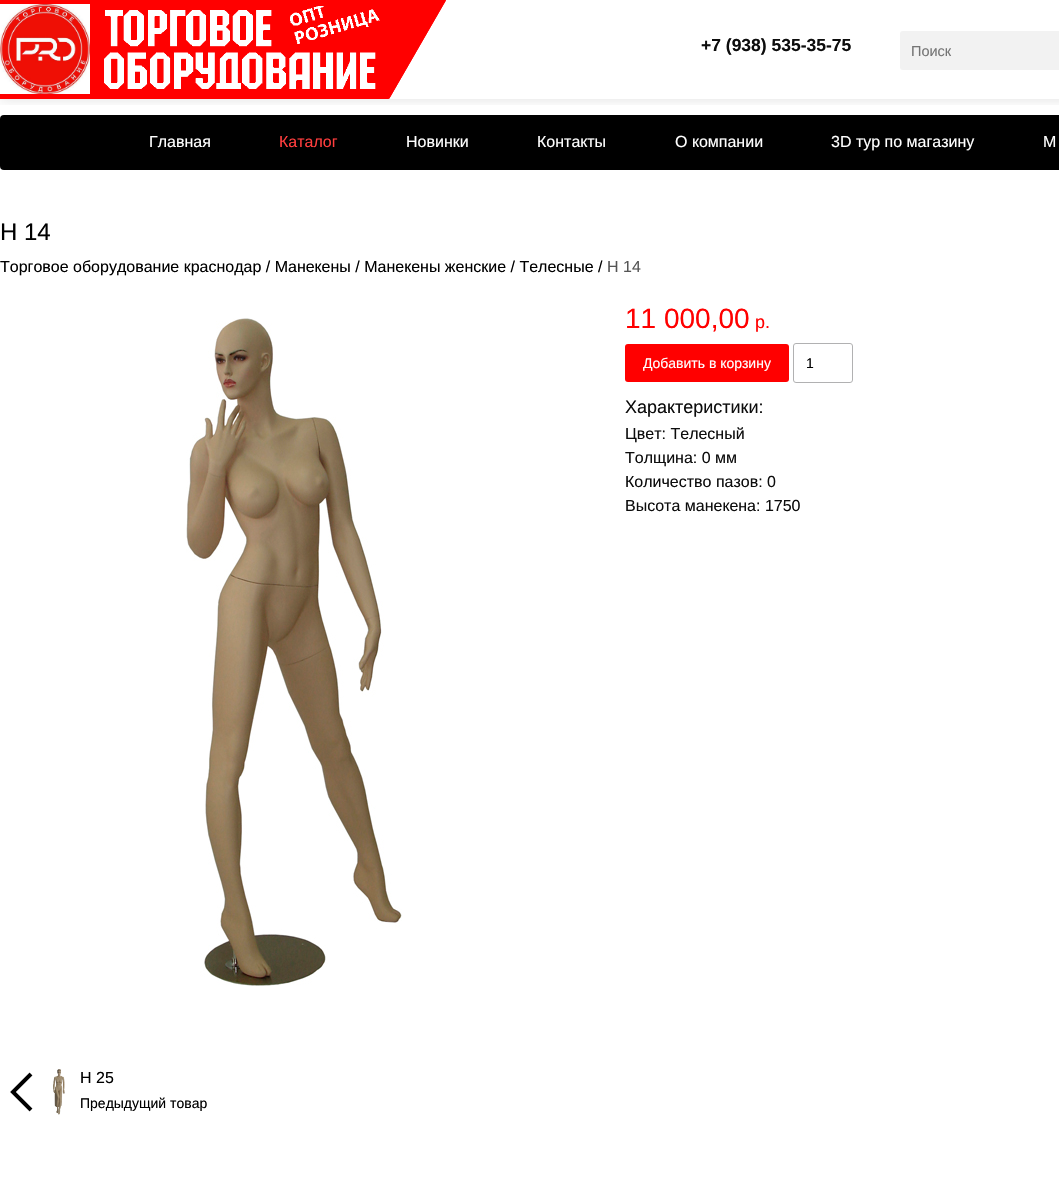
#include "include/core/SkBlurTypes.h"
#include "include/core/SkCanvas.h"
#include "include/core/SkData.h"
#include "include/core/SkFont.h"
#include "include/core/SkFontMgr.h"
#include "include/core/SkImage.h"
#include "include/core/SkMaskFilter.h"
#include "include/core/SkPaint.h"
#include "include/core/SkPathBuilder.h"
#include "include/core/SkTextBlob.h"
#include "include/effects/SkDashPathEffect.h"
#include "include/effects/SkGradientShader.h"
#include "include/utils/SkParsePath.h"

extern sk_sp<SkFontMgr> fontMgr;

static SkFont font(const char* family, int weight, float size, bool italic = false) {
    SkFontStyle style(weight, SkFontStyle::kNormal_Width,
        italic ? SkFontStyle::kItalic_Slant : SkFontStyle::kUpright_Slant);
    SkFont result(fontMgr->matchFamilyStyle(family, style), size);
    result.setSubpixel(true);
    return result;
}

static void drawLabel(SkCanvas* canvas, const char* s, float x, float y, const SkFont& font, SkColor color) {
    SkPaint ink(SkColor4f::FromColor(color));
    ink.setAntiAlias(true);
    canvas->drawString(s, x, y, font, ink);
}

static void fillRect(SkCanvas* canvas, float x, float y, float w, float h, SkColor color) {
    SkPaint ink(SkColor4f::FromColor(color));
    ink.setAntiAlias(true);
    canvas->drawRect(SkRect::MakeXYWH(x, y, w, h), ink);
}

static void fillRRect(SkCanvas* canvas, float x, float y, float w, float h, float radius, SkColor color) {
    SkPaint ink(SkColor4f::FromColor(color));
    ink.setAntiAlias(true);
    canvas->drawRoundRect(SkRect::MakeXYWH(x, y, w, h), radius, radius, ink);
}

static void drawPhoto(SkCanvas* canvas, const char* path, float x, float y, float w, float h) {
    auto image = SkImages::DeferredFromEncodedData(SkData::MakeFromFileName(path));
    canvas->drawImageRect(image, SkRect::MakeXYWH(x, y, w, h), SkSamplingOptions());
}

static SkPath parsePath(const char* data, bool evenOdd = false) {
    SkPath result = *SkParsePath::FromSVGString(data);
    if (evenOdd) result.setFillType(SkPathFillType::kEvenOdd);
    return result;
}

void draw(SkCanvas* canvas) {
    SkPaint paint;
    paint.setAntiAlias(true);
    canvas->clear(0xFFFFFFFF);
    canvas->save();
    canvas->clipRect(SkRect::MakeXYWH(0, 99, 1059, 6));
    paint.setColor(0x1F000000);
    paint.setMaskFilter(SkMaskFilter::MakeBlur(kNormal_SkBlurStyle, 6.5f));
    canvas->drawRect(SkRect::MakeXYWH(0, 0, 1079, 99), paint);
    paint.setMaskFilter(nullptr);
    canvas->restore();
    fillRect(canvas, 0, 0, 388, 99, 0xFFFF0000);
    drawPhoto(canvas, "assets/img1.png", 0, 4, 90, 90);
    paint.setColor(0xFFFF0000);
    canvas->drawPath(parsePath("M446 0L389 99L318 58L375-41Z"), paint);
    paint.setStroke(true);
    paint.setStrokeWidth(1);
    canvas->drawPath(parsePath("M445.5 .5L389 98.5L318.5 58L375-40Z"), paint);
    drawPhoto(canvas, "assets/img2.png", 104, 6, 276, 83);
    SkFont font1 = font("Liberation Sans", 700, 17.5f);
    drawLabel(canvas, "+7 (938) 535-35-75", 701, 51, font1, 0xFF0D0D0D);
    fillRRect(canvas, 900, 31, 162, 39, 3, 0xFFF2F2F2);
    SkFont font2 = font("Liberation Sans", 400, 14.5f);
    drawLabel(canvas, "Поиск", 911, 56, font2, 0xFF757575);
    fillRRect(canvas, 0, 115, 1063, 55, 4, 0xFF000000);
    SkFont font3 = font("Liberation Sans", 400, 16);
    drawLabel(canvas, "Главная", 149, 147, font3, 0xFFFFFFFF);
    drawLabel(canvas, "Каталог", 279, 147, font3, 0xFFFF3D3D);
    drawLabel(canvas, "Новинки", 406, 147, font3, 0xFFFFFFFF);
    drawLabel(canvas, "Контакты", 537, 147, font3, 0xFFFFFFFF);
    drawLabel(canvas, "О компании", 675, 147, font3, 0xFFFFFFFF);
    drawLabel(canvas, "3D тур по магазину", 831, 147, font3, 0xFFFFFFFF);
    drawLabel(canvas, "М", 1043, 147, font3, 0xFFFFFFFF);
    SkFont font4 = font("Liberation Sans", 400, 24);
    drawLabel(canvas, "H 14", 0, 240, font4, 0xFF000000);
    drawLabel(canvas, "Торговое оборудование краснодар / Манекены / Манекены женские / Телесные /", 0, 272, font3, 0xFF000000);
    drawLabel(canvas, "H 14", 607, 272, font3, 0xFF555555);
    drawPhoto(canvas, "assets/img3.png", 186, 318, 216, 668);
    SkFont font5 = font("Liberation Sans", 400, 28);
    drawLabel(canvas, "11 000,00", 625, 328, font5, 0xFFFF0000);
    SkFont font6 = font("Liberation Sans", 400, 18);
    drawLabel(canvas, "р.", 755, 328, font6, 0xFFFF0000);
    fillRRect(canvas, 625, 344, 164, 38, 3, 0xFFFF0000);
    SkFont font7 = font("Liberation Sans", 400, 14);
    drawLabel(canvas, "Добавить в корзину", 643, 368, font7, 0xFFFFFFFF);
    paint.setColor(0xFFB1B1B2);
    canvas->drawRoundRect(SkRect::MakeXYWH(793.5f, 343.5f, 59, 39), 2.5f, 2.5f, paint);
    drawLabel(canvas, "1", 806, 368, font7, 0xFF000000);
    drawLabel(canvas, "Характеристики:", 625, 413, font6, 0xFF0D0D0D);
    drawLabel(canvas, "Цвет: Телесный", 625, 439, font3, 0xFF0D0D0D);
    drawLabel(canvas, "Толщина: 0 мм", 625, 463, font3, 0xFF0D0D0D);
    drawLabel(canvas, "Количество пазов: 0", 625, 487, font3, 0xFF0D0D0D);
    drawLabel(canvas, "Высота манекена: 1750", 625, 511, font3, 0xFF0D0D0D);
    drawPhoto(canvas, "assets/img4.png", 10, 1072, 23, 40);
    drawPhoto(canvas, "assets/img5.png", 53, 1069, 12, 46);
    drawLabel(canvas, "H 25", 80, 1083, font3, 0xFF000000);
    drawLabel(canvas, "Предыдущий товар", 80, 1108, font7, 0xFF000000);
}
